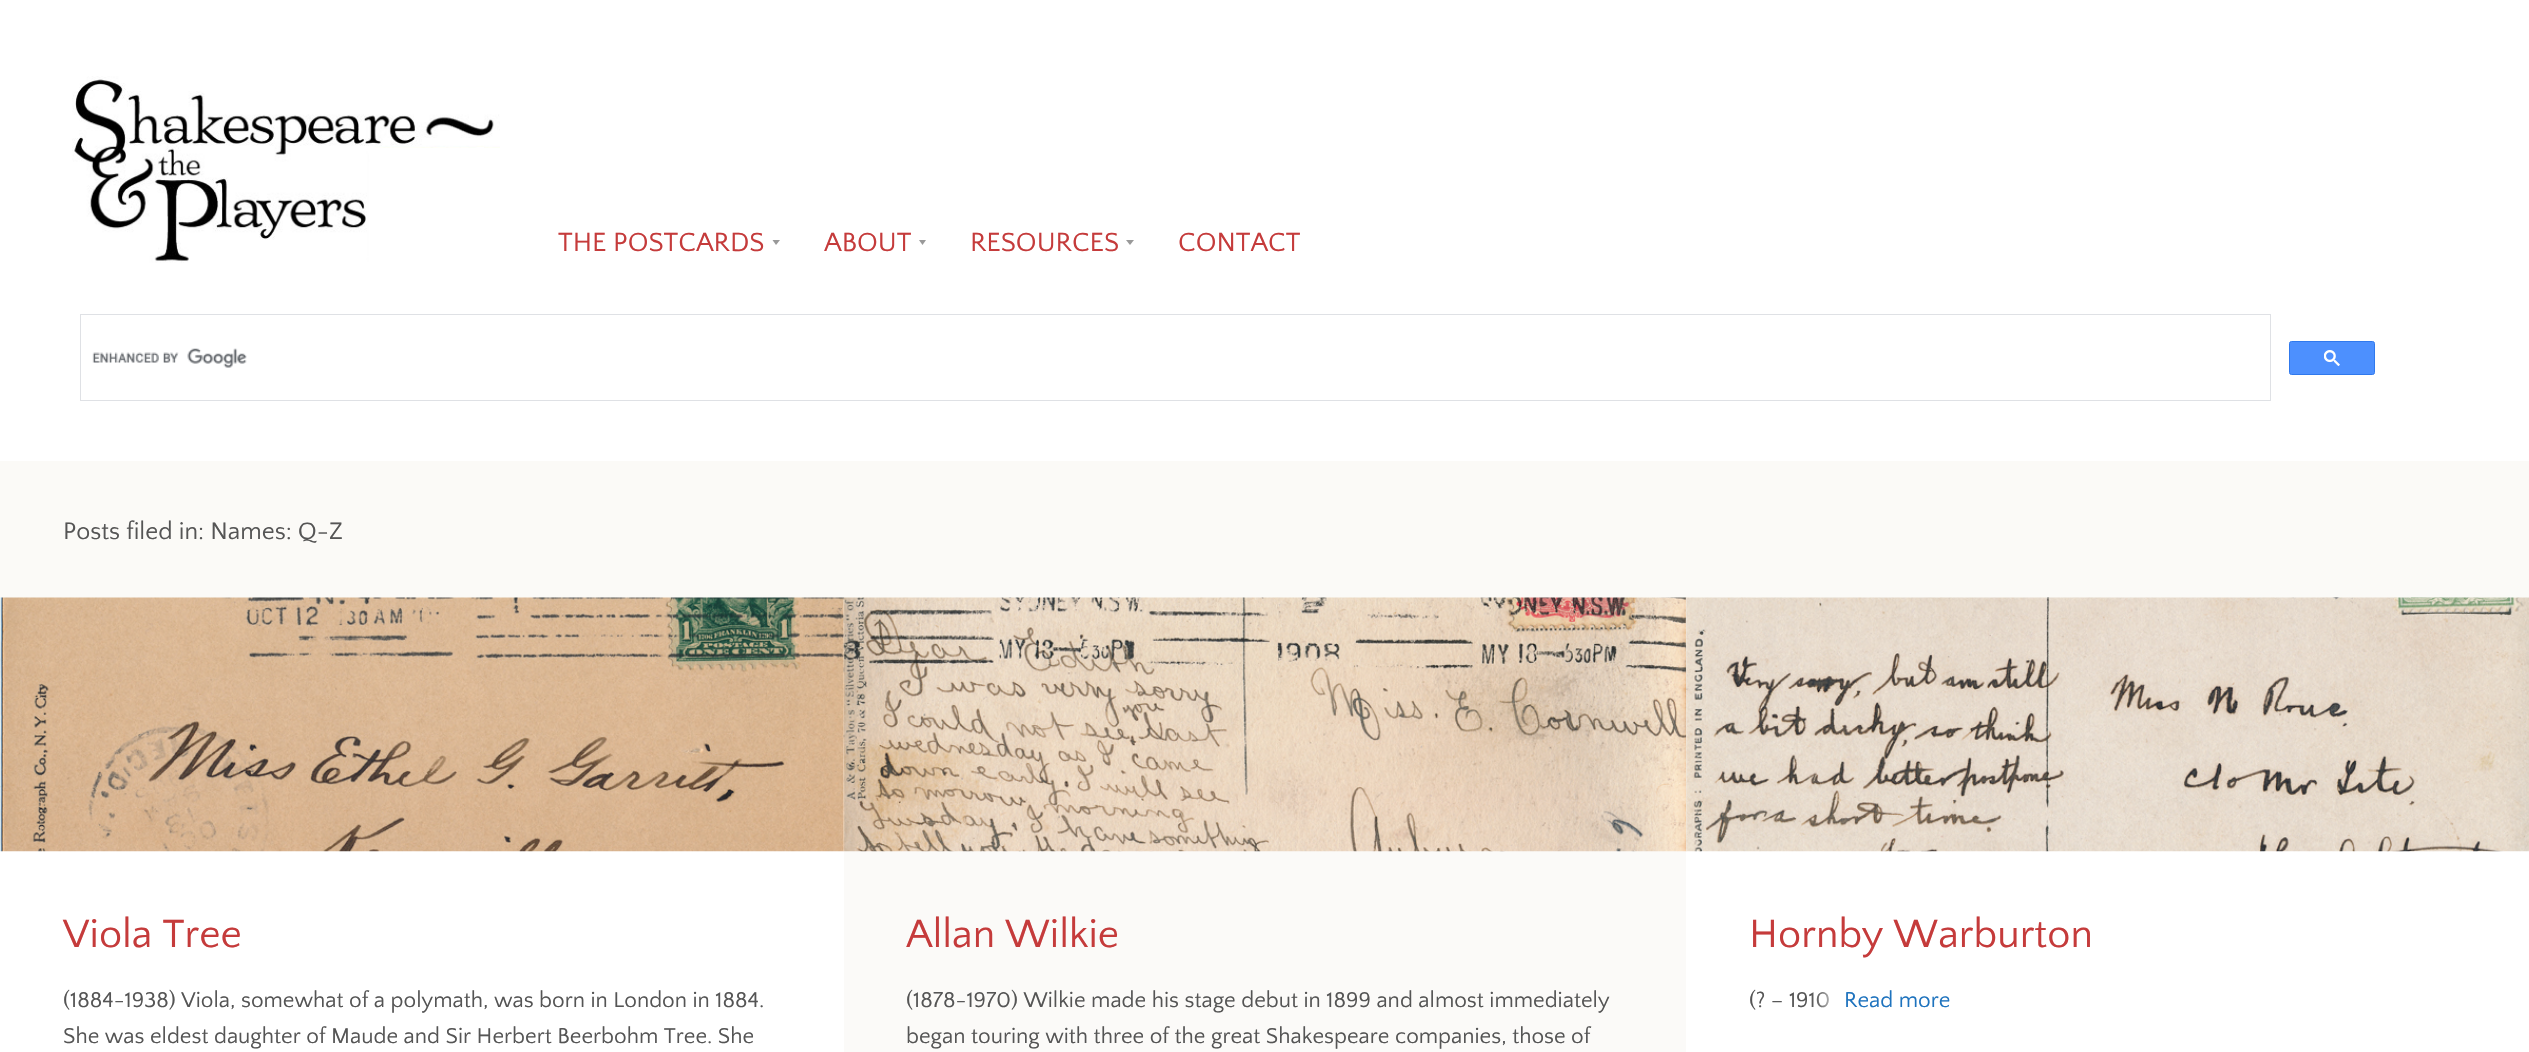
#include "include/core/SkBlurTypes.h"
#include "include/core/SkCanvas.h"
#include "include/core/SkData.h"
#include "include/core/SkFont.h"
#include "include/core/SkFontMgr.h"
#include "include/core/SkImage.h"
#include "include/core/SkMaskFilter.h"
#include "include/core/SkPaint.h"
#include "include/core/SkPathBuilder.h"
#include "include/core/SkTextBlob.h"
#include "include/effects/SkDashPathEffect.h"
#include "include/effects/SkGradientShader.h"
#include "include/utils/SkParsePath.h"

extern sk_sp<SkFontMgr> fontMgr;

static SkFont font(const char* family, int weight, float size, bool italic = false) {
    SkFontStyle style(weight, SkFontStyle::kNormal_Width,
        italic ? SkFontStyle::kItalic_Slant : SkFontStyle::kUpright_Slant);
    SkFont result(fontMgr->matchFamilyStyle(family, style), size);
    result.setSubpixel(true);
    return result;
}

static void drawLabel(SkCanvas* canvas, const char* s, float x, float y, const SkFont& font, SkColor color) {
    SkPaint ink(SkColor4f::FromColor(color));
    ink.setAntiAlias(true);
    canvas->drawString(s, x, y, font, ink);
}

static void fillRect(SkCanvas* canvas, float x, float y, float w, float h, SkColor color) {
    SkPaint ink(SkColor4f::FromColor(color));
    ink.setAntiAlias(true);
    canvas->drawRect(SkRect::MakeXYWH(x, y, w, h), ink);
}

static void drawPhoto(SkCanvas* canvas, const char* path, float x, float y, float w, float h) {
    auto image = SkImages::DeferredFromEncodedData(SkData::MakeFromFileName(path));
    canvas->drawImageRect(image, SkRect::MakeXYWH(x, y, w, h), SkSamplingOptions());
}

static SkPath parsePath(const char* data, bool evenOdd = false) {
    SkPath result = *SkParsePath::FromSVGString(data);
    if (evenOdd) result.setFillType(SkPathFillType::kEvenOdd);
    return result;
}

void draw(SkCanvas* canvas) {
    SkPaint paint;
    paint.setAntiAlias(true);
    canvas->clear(0xFFFFFFFF);
    drawPhoto(canvas, "assets/img1.png", 72, 76, 428, 187);
    SkFont font1 = font("Quattrocento Sans", 400, 27.5f);
    drawLabel(canvas, "THE POSTCARDS", 558, 251, font1, 0xFFC53B3B);
    paint.setColor(0xFF999999);
    canvas->drawPath(parsePath("M772.5 240H780L776 245Z"), paint);
    drawLabel(canvas, "ABOUT", 824, 251, font1, 0xFFC53B3B);
    canvas->drawPath(parsePath("M919 240H926L922.5 245Z"), paint);
    drawLabel(canvas, "RESOURCES", 970, 251, font1, 0xFFC53B3B);
    canvas->drawPath(parsePath("M1126 240H1134L1130 245Z"), paint);
    drawLabel(canvas, "CONTACT", 1178, 251, font1, 0xFFC53B3B);
    paint.setStroke(true);
    paint.setStrokeWidth(1);
    paint.setColor(0xFFDFE1E5);
    canvas->drawRect(SkRect::MakeXYWH(80.5f, 314.5f, 2190, 86), paint);
    drawPhoto(canvas, "assets/img2.png", 92, 348, 155, 20);
    paint.setStroke(false);
    paint.setColor(0xFF4D90FE);
    canvas->drawRoundRect(SkRect::MakeXYWH(2289.5f, 341.5f, 85, 33), 2, 2, paint);
    paint.setStroke(true);
    paint.setColor(0xFF3079ED);
    canvas->drawRoundRect(SkRect::MakeXYWH(2289.5f, 341.5f, 85, 33), 2, 2, paint);
    drawPhoto(canvas, "assets/img3.png", 2324, 350, 16, 16);
    fillRect(canvas, 0, 461, 2529, 137, 0xFFFBFAF7);
    SkFont font2 = font("Quattrocento Sans", 400, 25);
    drawLabel(canvas, "Posts filed in: Names: Q-Z", 63, 539, font2, 0xFF555555);
    drawPhoto(canvas, "assets/img4.png", 0, 597, 844, 255);
    SkFont font3 = font("Quattrocento Sans", 400, 41.25f);
    drawLabel(canvas, "Viola Tree", 63, 947, font3, 0xFFC53B3B);
    SkFont font4 = font("Quattrocento Sans", 400, 22.5f);
    drawLabel(canvas, "(1884-1938) Viola, somewhat of a polymath, was born in London in 1884.", 63, 1007, font4, 0xFF555555);
    drawLabel(canvas, "She was eldest daughter of Maude and Sir Herbert Beerbohm Tree. She", 63, 1043, font4, 0xFF555555);
    fillRect(canvas, 844, 851, 842, 201, 0xFFFBFAF8);
    drawPhoto(canvas, "assets/img5.png", 843, 597, 844, 255);
    drawLabel(canvas, "Allan Wilkie", 906, 947, font3, 0xFFC53B3B);
    drawLabel(canvas, "(1878-1970) Wilkie made his stage debut in 1899 and almost immediately", 906, 1007, font4, 0xFF555555);
    drawLabel(canvas, "began touring with three of the great Shakespeare companies, those of", 906, 1043, font4, 0xFF555555);
    drawPhoto(canvas, "assets/img6.png", 1686, 597, 843, 255);
    drawLabel(canvas, "Hornby Warburton", 1749, 947, font3, 0xFFC53B3B);
    drawLabel(canvas, "(? – 1910", 1749, 1007, font4, 0xFF555555);
    drawPhoto(canvas, "assets/img7.png", 1812, 989, 25, 21);
    drawLabel(canvas, "Read more", 1844, 1007, font4, 0xFF1E73BE);
}
